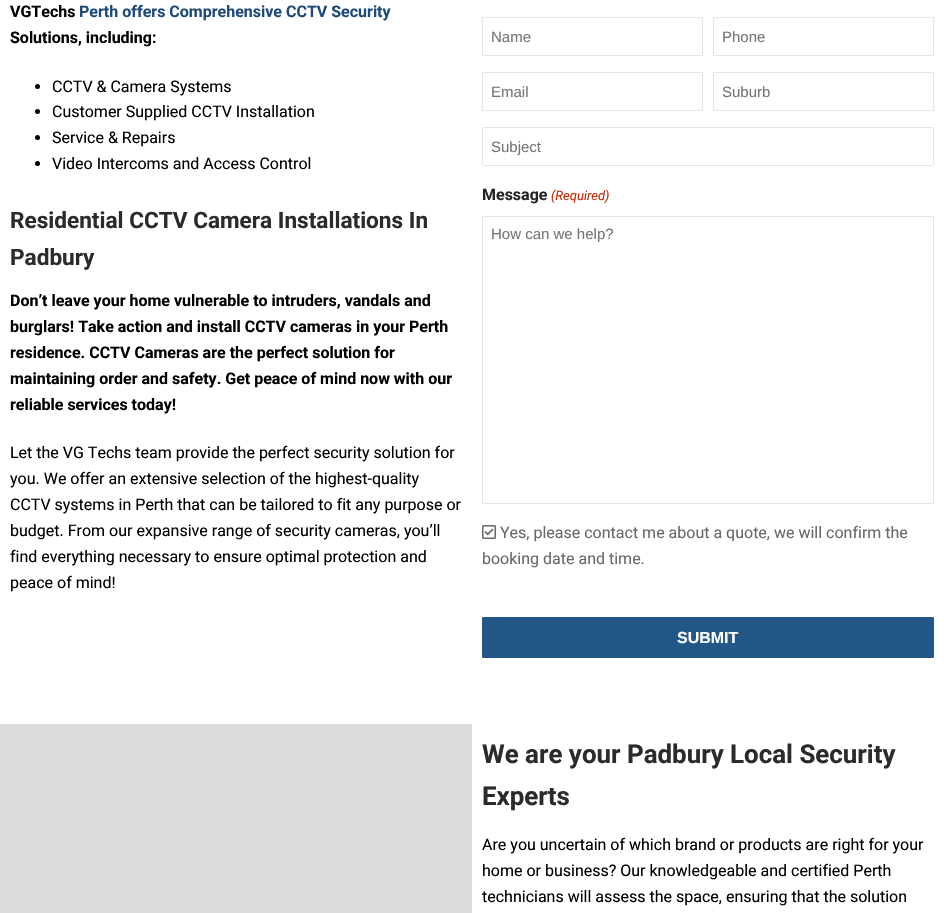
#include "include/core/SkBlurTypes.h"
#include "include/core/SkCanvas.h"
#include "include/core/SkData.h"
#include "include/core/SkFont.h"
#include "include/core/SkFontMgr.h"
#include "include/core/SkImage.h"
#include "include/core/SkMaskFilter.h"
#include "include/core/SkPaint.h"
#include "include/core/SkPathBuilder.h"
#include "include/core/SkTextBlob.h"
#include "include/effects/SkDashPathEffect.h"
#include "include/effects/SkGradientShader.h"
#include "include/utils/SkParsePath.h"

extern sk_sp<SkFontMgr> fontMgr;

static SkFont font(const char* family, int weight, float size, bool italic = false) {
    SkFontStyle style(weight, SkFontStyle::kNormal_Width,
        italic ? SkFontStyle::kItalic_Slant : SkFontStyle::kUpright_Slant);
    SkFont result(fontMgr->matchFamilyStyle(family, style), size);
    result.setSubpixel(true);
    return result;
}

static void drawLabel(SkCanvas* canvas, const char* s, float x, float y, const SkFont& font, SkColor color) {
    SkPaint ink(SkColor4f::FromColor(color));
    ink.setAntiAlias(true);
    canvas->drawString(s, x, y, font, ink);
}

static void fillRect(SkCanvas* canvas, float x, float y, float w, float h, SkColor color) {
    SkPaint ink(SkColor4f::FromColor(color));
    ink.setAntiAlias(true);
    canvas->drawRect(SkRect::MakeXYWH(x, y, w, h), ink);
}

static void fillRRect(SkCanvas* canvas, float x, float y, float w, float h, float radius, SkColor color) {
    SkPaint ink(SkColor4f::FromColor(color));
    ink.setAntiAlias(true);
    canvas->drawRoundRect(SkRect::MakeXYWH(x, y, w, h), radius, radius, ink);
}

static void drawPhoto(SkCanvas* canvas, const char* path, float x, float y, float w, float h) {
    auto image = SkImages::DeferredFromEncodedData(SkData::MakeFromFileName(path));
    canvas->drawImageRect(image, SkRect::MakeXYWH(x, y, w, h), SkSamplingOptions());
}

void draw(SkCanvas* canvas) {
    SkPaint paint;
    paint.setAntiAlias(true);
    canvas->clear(0xFFFFFFFF);
    SkFont font1 = font("Roboto", 700, 16);
    drawLabel(canvas, "VGTechs", 10, 17, font1, 0xFF000000);
    drawLabel(canvas, "Perth offers Comprehensive CCTV Security", 79, 17, font1, 0xFF1E4B75);
    drawLabel(canvas, "Solutions, including:", 10, 43, font1, 0xFF000000);
    paint.setColor(0xFF000000);
    canvas->drawCircle(37.5f, 86.5f, 2.5f, paint);
    SkFont font2 = font("Roboto", 400, 16);
    drawLabel(canvas, "CCTV & Camera Systems", 52, 92, font2, 0xFF000000);
    canvas->drawCircle(37.5f, 111.5f, 2.5f, paint);
    drawLabel(canvas, "Customer Supplied CCTV Installation", 52, 117, font2, 0xFF000000);
    canvas->drawCircle(37.5f, 137.5f, 2.5f, paint);
    drawLabel(canvas, "Service & Repairs", 52, 143, font2, 0xFF000000);
    canvas->drawCircle(37.5f, 163.5f, 2.5f, paint);
    drawLabel(canvas, "Video Intercoms and Access Control", 52, 169, font2, 0xFF000000);
    SkFont font3 = font("Roboto", 700, 22.6f);
    drawLabel(canvas, "Residential CCTV Camera Installations In", 10, 228, font3, 0xFF2B2B2B);
    drawLabel(canvas, "Padbury", 10, 265, font3, 0xFF2B2B2B);
    drawLabel(canvas, "Don’t leave your home vulnerable to intruders, vandals and", 10, 306, font1, 0xFF000000);
    drawLabel(canvas, "burglars! Take action and install CCTV cameras in your Perth", 10, 332, font1, 0xFF000000);
    drawLabel(canvas, "residence. CCTV Cameras are the perfect solution for", 10, 358, font1, 0xFF000000);
    drawLabel(canvas, "maintaining order and safety. Get peace of mind now with our", 10, 384, font1, 0xFF000000);
    drawLabel(canvas, "reliable services today!", 10, 410, font1, 0xFF000000);
    drawLabel(canvas, "Let the VG Techs team provide the perfect security solution for", 10, 458, font2, 0xFF000000);
    drawLabel(canvas, "you. We offer an extensive selection of the highest-quality", 10, 484, font2, 0xFF000000);
    drawLabel(canvas, "CCTV systems in Perth that can be tailored to fit any purpose or", 10, 510, font2, 0xFF000000);
    drawLabel(canvas, "budget. From our expansive range of security cameras, you’ll", 10, 536, font2, 0xFF000000);
    drawLabel(canvas, "find everything necessary to ensure optimal protection and", 10, 562, font2, 0xFF000000);
    drawLabel(canvas, "peace of mind!", 10, 588, font2, 0xFF000000);
    paint.setStroke(true);
    paint.setStrokeWidth(1);
    paint.setColor(0xFFE5E5E5);
    canvas->drawRoundRect(SkRect::MakeXYWH(482.5f, 17.5f, 220, 38), 0.5f, 0.5f, paint);
    SkFont font4 = font("Liberation Sans", 400, 15);
    drawLabel(canvas, "Name", 491, 42, font4, 0xFF757575);
    canvas->drawRoundRect(SkRect::MakeXYWH(713.5f, 17.5f, 220, 38), 0.5f, 0.5f, paint);
    drawLabel(canvas, "Phone", 722, 42, font4, 0xFF757575);
    canvas->drawRoundRect(SkRect::MakeXYWH(482.5f, 72.5f, 220, 38), 0.5f, 0.5f, paint);
    drawLabel(canvas, "Email", 491, 97, font4, 0xFF757575);
    canvas->drawRoundRect(SkRect::MakeXYWH(713.5f, 72.5f, 220, 38), 0.5f, 0.5f, paint);
    drawLabel(canvas, "Suburb", 722, 97, font4, 0xFF757575);
    canvas->drawRoundRect(SkRect::MakeXYWH(482.5f, 127.5f, 451, 38), 0.5f, 0.5f, paint);
    drawLabel(canvas, "Subject", 491, 152, font4, 0xFF757575);
    drawLabel(canvas, "Message", 482, 200, font1, 0xFF252525);
    SkFont font5 = font("Roboto", 400, 13, true);
    drawLabel(canvas, "(Required)", 551, 200, font5, 0xFFC02B0A);
    canvas->drawRoundRect(SkRect::MakeXYWH(482.5f, 216.5f, 451, 287), 0.5f, 0.5f, paint);
    drawLabel(canvas, "How can we help?", 491, 239, font4, 0xFF757575);
    drawPhoto(canvas, "assets/img1.png", 482, 525, 14, 14);
    drawLabel(canvas, "Yes, please contact me about a quote, we will confirm the", 500, 538, font2, 0xFF686868);
    drawLabel(canvas, "booking date and time.", 482, 564, font2, 0xFF686868);
    fillRRect(canvas, 482, 617, 452, 41, 1, 0xFF235787);
    SkFont font6 = font("Liberation Sans", 700, 16);
    drawLabel(canvas, "SUBMIT", 677, 643, font6, 0xFFFFFFFF);
    fillRect(canvas, 0, 724, 472, 189, 0xFFDBDBDB);
    SkFont font7 = font("Roboto", 700, 25.9f);
    drawLabel(canvas, "We are your Padbury Local Security", 482, 763, font7, 0xFF2B2B2B);
    drawLabel(canvas, "Experts", 482, 805, font7, 0xFF2B2B2B);
    drawLabel(canvas, "Are you uncertain of which brand or products are right for your", 482, 850, font2, 0xFF000000);
    drawLabel(canvas, "home or business? Our knowledgeable and certified Perth", 482, 876, font2, 0xFF000000);
    drawLabel(canvas, "technicians will assess the space, ensuring that the solution", 482, 902, font2, 0xFF000000);
}
